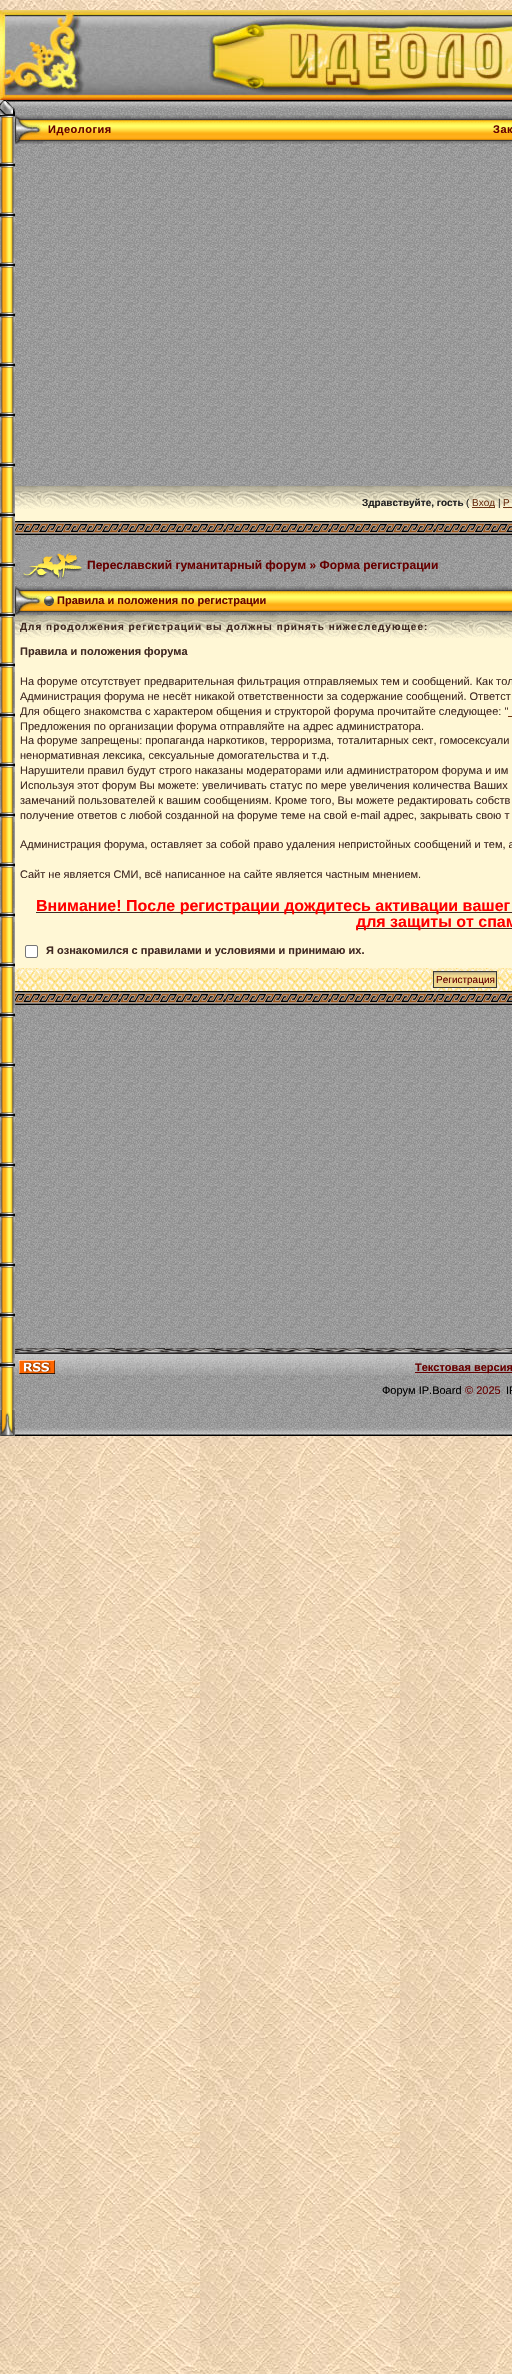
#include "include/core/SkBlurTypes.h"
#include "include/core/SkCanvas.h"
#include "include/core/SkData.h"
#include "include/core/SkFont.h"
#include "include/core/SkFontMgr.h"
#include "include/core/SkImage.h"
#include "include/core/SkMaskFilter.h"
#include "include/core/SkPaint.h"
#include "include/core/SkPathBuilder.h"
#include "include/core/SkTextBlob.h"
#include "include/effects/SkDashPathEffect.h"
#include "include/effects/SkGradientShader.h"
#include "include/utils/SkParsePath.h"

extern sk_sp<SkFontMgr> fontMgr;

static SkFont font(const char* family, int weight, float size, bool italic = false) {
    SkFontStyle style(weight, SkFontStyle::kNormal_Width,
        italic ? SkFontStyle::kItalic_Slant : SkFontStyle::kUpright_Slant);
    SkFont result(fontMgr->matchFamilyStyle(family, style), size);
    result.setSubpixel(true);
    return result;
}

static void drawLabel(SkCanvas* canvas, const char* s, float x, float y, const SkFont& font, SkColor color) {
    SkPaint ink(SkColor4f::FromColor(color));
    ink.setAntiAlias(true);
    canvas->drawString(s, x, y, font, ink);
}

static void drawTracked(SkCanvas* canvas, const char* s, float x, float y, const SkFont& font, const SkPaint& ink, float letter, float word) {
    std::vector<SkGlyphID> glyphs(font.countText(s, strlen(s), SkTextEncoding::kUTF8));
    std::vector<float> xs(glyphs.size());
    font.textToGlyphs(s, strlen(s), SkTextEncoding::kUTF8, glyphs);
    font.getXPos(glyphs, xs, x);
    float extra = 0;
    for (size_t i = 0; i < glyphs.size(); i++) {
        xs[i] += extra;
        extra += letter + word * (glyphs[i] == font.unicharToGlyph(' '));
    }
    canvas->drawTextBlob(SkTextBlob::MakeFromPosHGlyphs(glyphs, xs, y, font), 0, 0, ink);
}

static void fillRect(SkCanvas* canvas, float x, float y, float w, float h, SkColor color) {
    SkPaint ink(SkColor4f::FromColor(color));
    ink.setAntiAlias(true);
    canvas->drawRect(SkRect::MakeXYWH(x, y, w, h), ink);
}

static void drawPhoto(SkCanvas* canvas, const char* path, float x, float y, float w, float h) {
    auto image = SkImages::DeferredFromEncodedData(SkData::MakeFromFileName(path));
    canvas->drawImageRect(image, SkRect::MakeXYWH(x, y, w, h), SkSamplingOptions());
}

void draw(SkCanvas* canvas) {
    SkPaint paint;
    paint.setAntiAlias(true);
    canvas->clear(0xFFFFFFFF);
    drawPhoto(canvas, "assets/img1.png", 0, 0, 512, 2374);
    drawPhoto(canvas, "assets/img2.png", 15, 110, 497, 5);
    drawPhoto(canvas, "assets/img3.png", 0, 10, 512, 90);
    drawPhoto(canvas, "assets/img4.png", 0, 100, 15, 15);
    drawPhoto(canvas, "assets/img5.png", 15, 100, 497, 10);
    drawPhoto(canvas, "assets/img6.png", 0, 115, 15, 1295);
    drawPhoto(canvas, "assets/img7.png", 15, 144, 497, 1266);
    drawPhoto(canvas, "assets/img8.png", 44, 115, 468, 29);
    drawPhoto(canvas, "assets/img9.png", 15, 115, 29, 29);
    SkFont font1 = font("Liberation Sans", 700, 11);
    paint.setColor(0xFF660000);
    drawTracked(canvas, "Идеология", 48, 133, font1, paint, 0.5f, 0);
    drawTracked(canvas, "Зак", 493, 133, font1, paint, 0.5f, 0);
    fillRect(canvas, 15, 509, 497, 12, 0xFFFFF7D5);
    drawPhoto(canvas, "assets/img10.png", 15, 486, 497, 23);
    SkFont font2 = font("Liberation Sans", 700, 10);
    drawLabel(canvas, "Здравствуйте, гость", 362, 506, font2, 0xFF222222);
    SkFont font3 = font("Liberation Sans", 400, 10);
    drawLabel(canvas, "(", 466, 506, font3, 0xFF222222);
    fillRect(canvas, 472, 507, 23, 1, 0xFF6D3416);
    drawLabel(canvas, "Вход", 472, 506, font3, 0xFF6D3416);
    drawLabel(canvas, "|", 498, 506, font3, 0xFF222222);
    drawLabel(canvas, "Р", 503, 506, font3, 0xFF6D3416);
    fillRect(canvas, 503, 507, 9, 1, 0xFF6D3416);
    drawPhoto(canvas, "assets/img11.png", 15, 521, 497, 14);
    drawPhoto(canvas, "assets/img12.png", 20, 551, 64, 31);
    SkFont font4 = font("Liberation Sans", 700, 12);
    drawLabel(canvas, "Переславский гуманитарный форум » Форма регистрации", 87, 569, font4, 0xFF660000);
    drawPhoto(canvas, "assets/img8.png", 44, 586, 468, 29);
    drawPhoto(canvas, "assets/img9.png", 15, 586, 29, 29);
    drawPhoto(canvas, "assets/img13.png", 44, 596, 10, 10);
    drawLabel(canvas, "Правила и положения по регистрации", 57, 604, font1, 0xFF660000);
    fillRect(canvas, 15, 638, 497, 330, 0xFFFFF7D5);
    drawPhoto(canvas, "assets/img10.png", 15, 615, 497, 23);
    paint.setColor(0xFF412A23);
    drawTracked(canvas, "Для продолжения регистрации вы должны принять нижеследующее:", 20, 630, font2, paint, 1, 0);
    drawLabel(canvas, "Правила и положения форума", 20, 655, font1, 0xFF412A23);
    SkFont font5 = font("Liberation Sans", 400, 11);
    drawLabel(canvas, "На форуме отсутствует предварительная фильтрация отправляемых тем и сообщений. Как тол", 20, 685, font5, 0xFF412A23);
    drawLabel(canvas, "Администрация форума не несёт никакой ответственности за содержание сообщений. Ответст", 20, 700, font5, 0xFF412A23);
    drawLabel(canvas, "Для общего знакомства с характером общения и структорой форума прочитайте следующее: \"", 20, 715, font5, 0xFF412A23);
    fillRect(canvas, 508, 716, 4, 1, 0xFF6D3416);
    drawLabel(canvas, "Предложения по организации форума отправляйте на адрес администратора.", 20, 730, font5, 0xFF412A23);
    drawLabel(canvas, "На форуме запрещены: пропаганда наркотиков, терроризма, тоталитарных сект, гомосексуали", 20, 744, font5, 0xFF412A23);
    drawLabel(canvas, "ненормативная лексика, сексуальные домогательства и т.д.", 20, 759, font5, 0xFF412A23);
    drawLabel(canvas, "Нарушители правил будут строго наказаны модераторами или администратором форума и им", 20, 774, font5, 0xFF412A23);
    drawLabel(canvas, "Используя этот форум Вы можете: увеличивать статус по мере увеличения количества Ваших", 20, 789, font5, 0xFF412A23);
    drawLabel(canvas, "замечаний пользователей к вашим сообщениям. Кроме того, Вы можете редактировать собств", 20, 804, font5, 0xFF412A23);
    drawLabel(canvas, "получение ответов с любой созданной на форуме теме на свой e-mail адрес, закрывать свою т", 20, 819, font5, 0xFF412A23);
    drawLabel(canvas, "Администрация форума, оставляет за собой право удаления непристойных сообщений и тем, а", 20, 848, font5, 0xFF412A23);
    drawLabel(canvas, "Сайт не является СМИ, всё написанное на сайте является частным мнением.", 20, 878, font5, 0xFF412A23);
    fillRect(canvas, 36, 912, 476, 1, 0xFF412A23);
    SkFont font6 = font("Liberation Sans", 700, 16);
    drawLabel(canvas, "Внимание! После регистрации дождитесь активации вашег", 36, 911, font6, 0xFFFF0000);
    fillRect(canvas, 356, 928, 156, 1, 0xFF412A23);
    drawLabel(canvas, "для защиты от спам", 356, 927, font6, 0xFFFF0000);
    paint.setColor(0xFFFFFFFF);
    canvas->drawRoundRect(SkRect::MakeXYWH(25.5f, 945.5f, 12, 12), 1.5f, 1.5f, paint);
    paint.setStroke(true);
    paint.setStrokeWidth(1);
    paint.setColor(0xFF767676);
    canvas->drawRoundRect(SkRect::MakeXYWH(25.5f, 945.5f, 12, 12), 1.5f, 1.5f, paint);
    drawLabel(canvas, "Я ознакомился с правилами и условиями и принимаю их.", 46, 954, font1, 0xFF412A23);
    drawPhoto(canvas, "assets/img14.png", 15, 968, 497, 23);
    drawPhoto(canvas, "assets/img15.png", 434, 972, 62, 15);
    paint.setColor(0xFF3A3A3A);
    canvas->drawRect(SkRect::MakeXYWH(433.5f, 971.5f, 63, 16), paint);
    drawLabel(canvas, "Регистрация", 436, 983, font3, 0xFF660000);
    drawPhoto(canvas, "assets/img11.png", 15, 991, 497, 14);
    drawPhoto(canvas, "assets/img16.png", 15, 1348, 497, 27);
    drawPhoto(canvas, "assets/img17.png", 19, 1360, 36, 14);
    fillRect(canvas, 415, 1372, 97, 1, 0xFF660000);
    drawLabel(canvas, "Текстовая версия", 415, 1371, font1, 0xFF660000);
    drawLabel(canvas, "Форум IP.Board", 382, 1394, font5, 0xFF000000);
    drawLabel(canvas, "© 2025", 465, 1394, font5, 0xFF660000);
    drawLabel(canvas, "IP", 506, 1394, font5, 0xFF000000);
    drawPhoto(canvas, "assets/img18.png", 0, 1410, 15, 26);
    drawPhoto(canvas, "assets/img19.png", 15, 1410, 497, 26);
}
